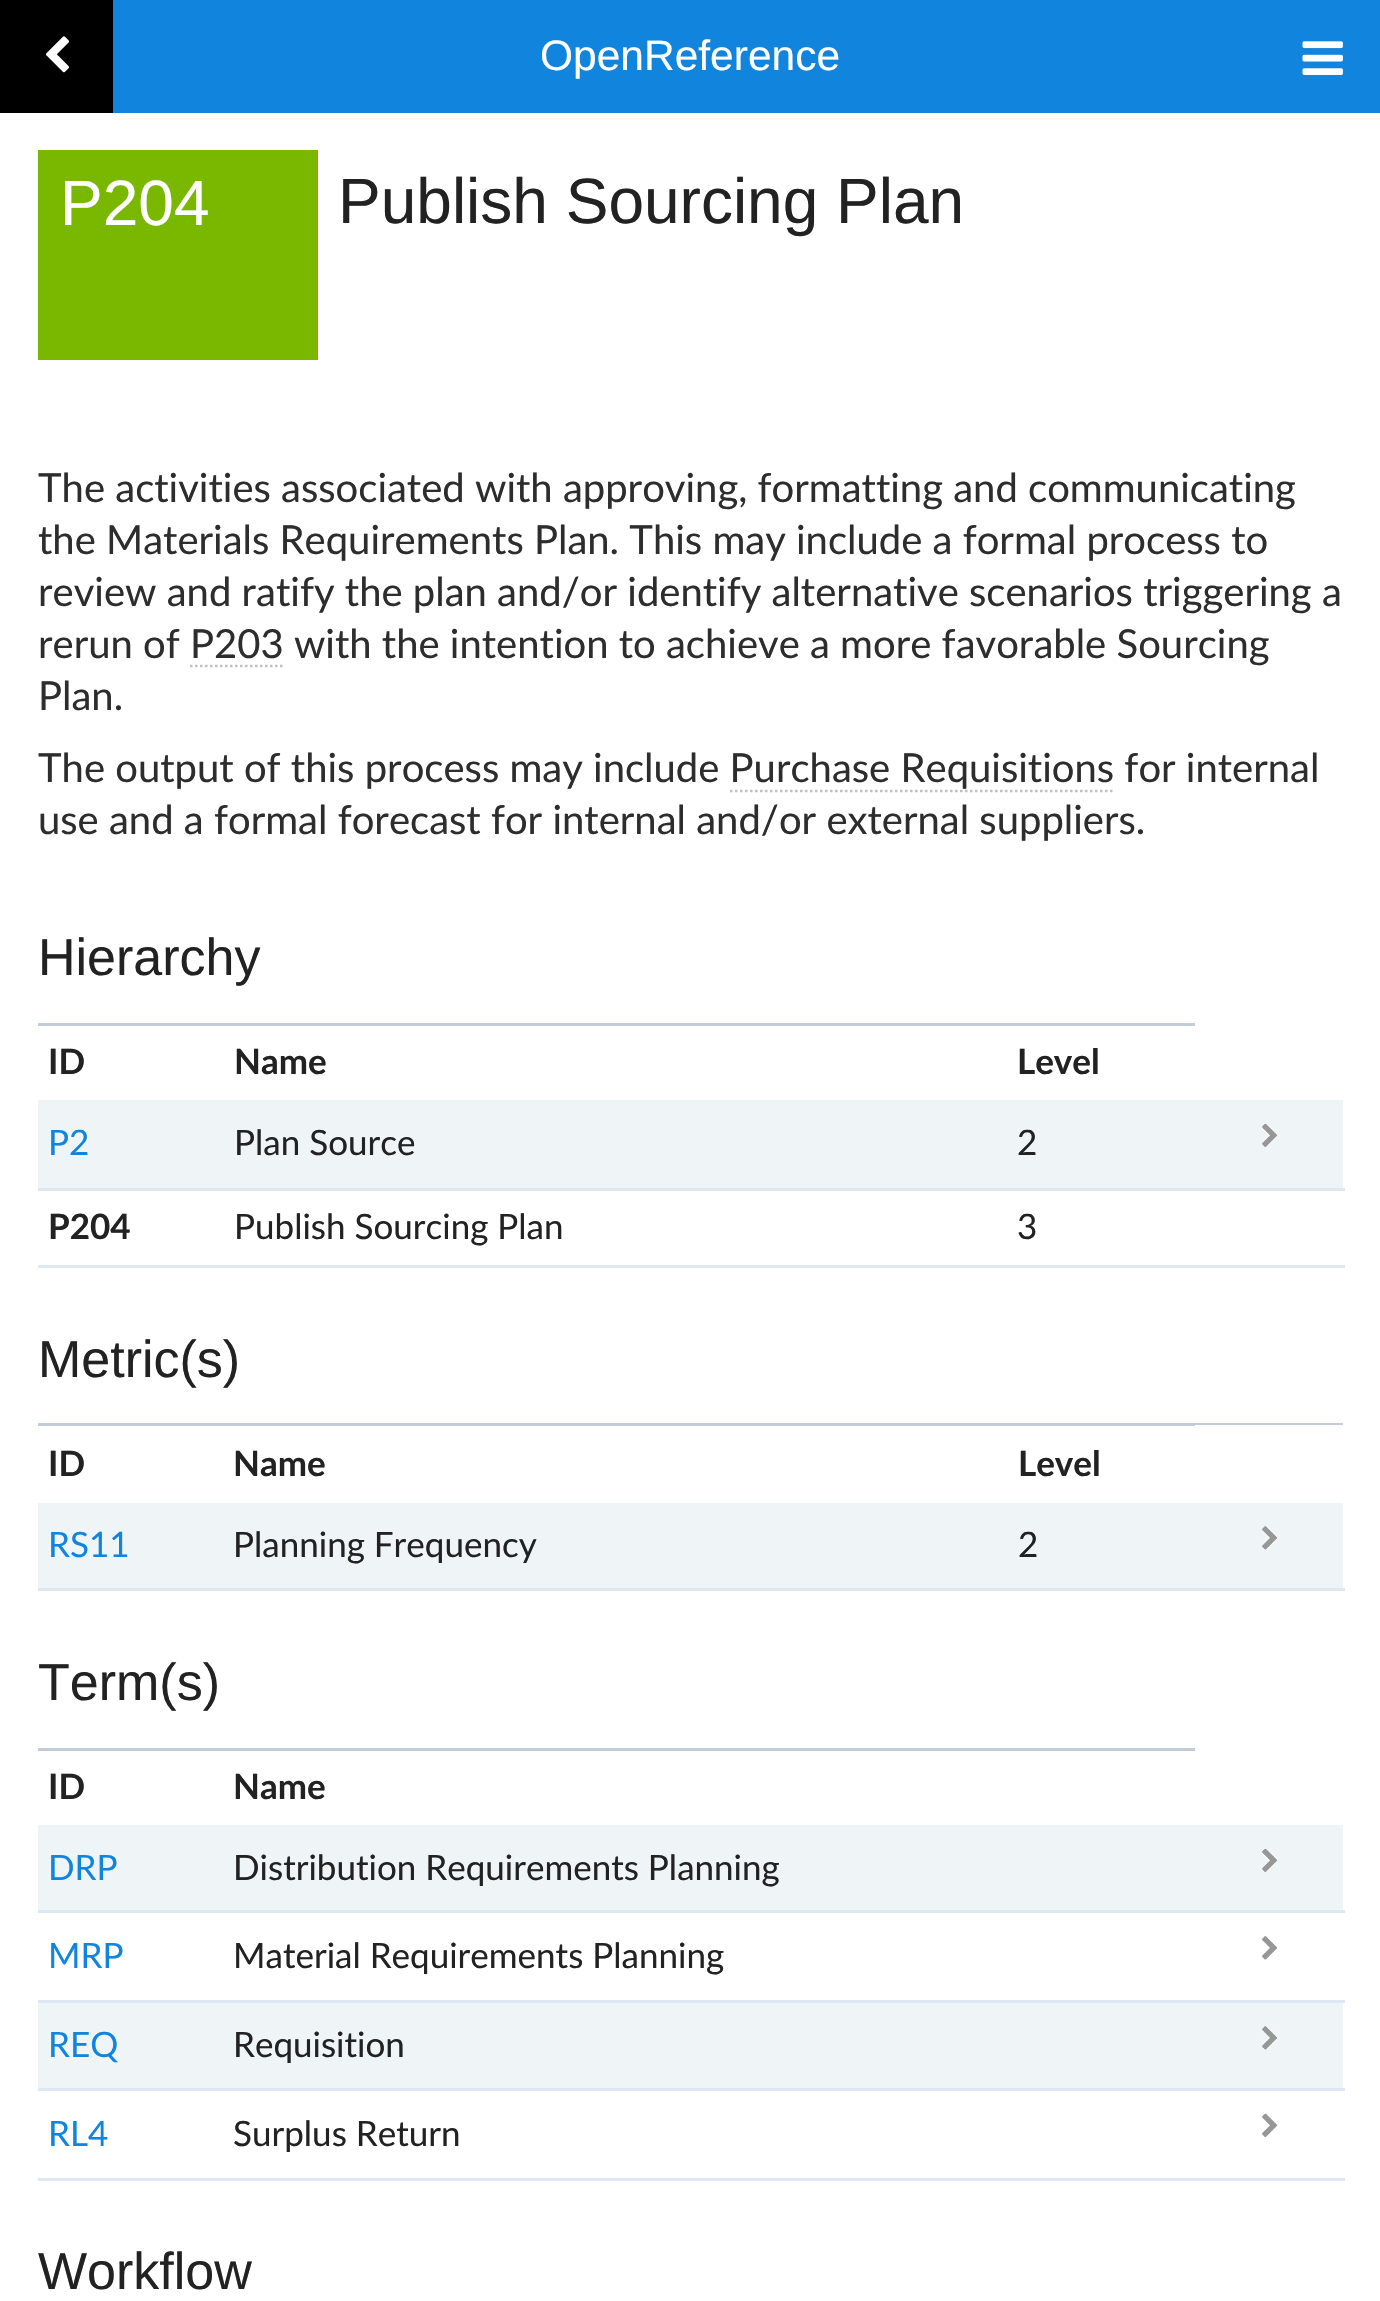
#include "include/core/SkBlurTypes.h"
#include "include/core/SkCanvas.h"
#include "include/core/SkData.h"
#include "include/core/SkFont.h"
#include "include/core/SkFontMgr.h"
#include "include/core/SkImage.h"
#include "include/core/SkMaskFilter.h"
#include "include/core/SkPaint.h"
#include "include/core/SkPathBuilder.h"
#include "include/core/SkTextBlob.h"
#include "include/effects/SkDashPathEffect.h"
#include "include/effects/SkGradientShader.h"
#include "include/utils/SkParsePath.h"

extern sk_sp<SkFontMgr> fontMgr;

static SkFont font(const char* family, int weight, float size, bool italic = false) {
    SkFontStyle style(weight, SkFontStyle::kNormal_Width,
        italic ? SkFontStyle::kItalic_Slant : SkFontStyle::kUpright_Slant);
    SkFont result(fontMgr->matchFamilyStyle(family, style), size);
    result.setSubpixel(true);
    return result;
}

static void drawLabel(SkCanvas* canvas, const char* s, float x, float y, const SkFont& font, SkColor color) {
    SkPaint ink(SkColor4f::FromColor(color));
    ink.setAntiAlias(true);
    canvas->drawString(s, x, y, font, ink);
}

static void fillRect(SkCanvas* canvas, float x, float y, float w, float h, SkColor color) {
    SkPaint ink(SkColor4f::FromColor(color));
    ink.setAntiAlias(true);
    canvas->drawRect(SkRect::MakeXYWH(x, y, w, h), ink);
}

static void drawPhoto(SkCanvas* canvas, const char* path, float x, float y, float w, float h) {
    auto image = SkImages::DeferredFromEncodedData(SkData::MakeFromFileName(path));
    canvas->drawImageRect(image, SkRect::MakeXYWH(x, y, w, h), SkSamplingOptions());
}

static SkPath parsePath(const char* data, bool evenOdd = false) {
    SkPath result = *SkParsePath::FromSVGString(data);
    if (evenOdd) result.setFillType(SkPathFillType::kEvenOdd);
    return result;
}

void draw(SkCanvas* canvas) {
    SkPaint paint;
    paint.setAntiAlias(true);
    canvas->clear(0xFFFFFFFF);
    fillRect(canvas, 113, 0, 1267, 113, 0xFF1185DD);
    fillRect(canvas, 0, 0, 113, 113, 0xFF000000);
    drawPhoto(canvas, "assets/img1.png", 46, 36, 23, 37);
    SkFont font1 = font("Liberation Sans", 400, 42.5f);
    drawLabel(canvas, "OpenReference", 540, 70, font1, 0xFFFFFFFF);
    drawPhoto(canvas, "assets/img2.png", 1302, 41, 41, 34);
    fillRect(canvas, 38, 150, 280, 210, 0xFF7AB800);
    SkFont font2 = font("Liberation Sans", 400, 64);
    drawLabel(canvas, "P204", 60, 225, font2, 0xFFFFFFFF);
    drawLabel(canvas, "Publish Sourcing Plan", 338, 223, font2, 0xFF222222);
    SkFont font3 = font("Lato", 400, 40);
    drawLabel(canvas, "The activities associated with approving, formatting and communicating", 38, 502, font3, 0xFF2D2D2D);
    drawLabel(canvas, "the Materials Requirements Plan. This may include a formal process to", 38, 554, font3, 0xFF2D2D2D);
    drawLabel(canvas, "review and ratify the plan and/or identify alternative scenarios triggering a", 38, 606, font3, 0xFF2D2D2D);
    drawLabel(canvas, "rerun of P203 with the intention to achieve a more favorable Sourcing", 38, 658, font3, 0xFF2D2D2D);
    paint.setStroke(true);
    paint.setStrokeWidth(2.5f);
    paint.setColor(0xFFC0C0C0);
    paint.setPathEffect(SkDashPathEffect::Make({{2.5f, 2.5f}}, 0));
    canvas->drawPath(parsePath("M190 666H282.5"), paint);
    paint.setPathEffect(nullptr);
    drawLabel(canvas, "Plan.", 38, 710, font3, 0xFF2D2D2D);
    drawLabel(canvas, "The output of this process may include Purchase Requisitions for internal", 38, 782, font3, 0xFF2D2D2D);
    paint.setPathEffect(SkDashPathEffect::Make({{2.5f, 2.5f}}, 0));
    canvas->drawPath(parsePath("M730 791H1112.5"), paint);
    paint.setPathEffect(nullptr);
    drawLabel(canvas, "use and a formal forecast for internal and/or external suppliers.", 38, 834, font3, 0xFF2D2D2D);
    SkFont font4 = font("Liberation Sans", 400, 52);
    drawLabel(canvas, "Hierarchy", 38, 975, font4, 0xFF222222);
    fillRect(canvas, 38, 1023, 1157, 3, 0xFFC3CBD9);
    SkFont font5 = font("Lato", 700, 35);
    drawLabel(canvas, "ID", 48, 1074, font5, 0xFF222222);
    drawLabel(canvas, "Name", 234, 1074, font5, 0xFF222222);
    drawLabel(canvas, "Level", 1017, 1074, font5, 0xFF222222);
    fillRect(canvas, 38, 1100, 1305, 88, 0xFFEFF4F7);
    fillRect(canvas, 38, 1188, 1307, 3, 0xFFDFE7F2);
    SkFont font6 = font("Lato", 400, 35);
    drawLabel(canvas, "P2", 48, 1155, font6, 0xFF1185DD);
    drawLabel(canvas, "Plan Source", 234, 1155, font6, 0xFF222222);
    drawLabel(canvas, "2", 1017, 1155, font6, 0xFF222222);
    drawPhoto(canvas, "assets/img3.png", 1262, 1123, 16, 25);
    fillRect(canvas, 38, 1265, 1307, 3, 0xFFDFE7F2);
    drawLabel(canvas, "P204", 48, 1239, font5, 0xFF222222);
    drawLabel(canvas, "Publish Sourcing Plan", 234, 1239, font6, 0xFF222222);
    drawLabel(canvas, "3", 1017, 1239, font6, 0xFF222222);
    drawLabel(canvas, "Metric(s)", 38, 1377, font4, 0xFF222222);
    fillRect(canvas, 38, 1423, 1305, 3, 0xFFC3CBD9);
    fillRect(canvas, 1195, 1425, 148, 1, 0xFFFFFFFF);
    drawLabel(canvas, "ID", 48, 1476, font5, 0xFF222222);
    drawLabel(canvas, "Name", 233, 1476, font5, 0xFF222222);
    drawLabel(canvas, "Level", 1018, 1476, font5, 0xFF222222);
    fillRect(canvas, 38, 1503, 1305, 85, 0xFFEFF4F7);
    fillRect(canvas, 38, 1588, 1307, 3, 0xFFDFE7F2);
    drawLabel(canvas, "RS11", 48, 1557, font6, 0xFF1185DD);
    drawLabel(canvas, "Planning Frequency", 233, 1557, font6, 0xFF222222);
    drawLabel(canvas, "2", 1018, 1557, font6, 0xFF222222);
    drawPhoto(canvas, "assets/img4.png", 1262, 1526, 15, 24);
    drawLabel(canvas, "Term(s)", 38, 1700, font4, 0xFF222222);
    fillRect(canvas, 38, 1748, 1157, 3, 0xFFC3CBD9);
    drawLabel(canvas, "ID", 48, 1799, font5, 0xFF222222);
    drawLabel(canvas, "Name", 233, 1799, font5, 0xFF222222);
    fillRect(canvas, 38, 1825, 1305, 85, 0xFFEFF4F7);
    fillRect(canvas, 38, 1910, 1307, 3, 0xFFDFE7F2);
    drawLabel(canvas, "DRP", 48, 1880, font6, 0xFF1185DD);
    drawLabel(canvas, "Distribution Requirements Planning", 233, 1880, font6, 0xFF222222);
    drawPhoto(canvas, "assets/img5.png", 1262, 1848, 16, 25);
    fillRect(canvas, 38, 2000, 1307, 3, 0xFFDFE7F2);
    drawLabel(canvas, "MRP", 48, 1968, font6, 0xFF1185DD);
    drawLabel(canvas, "Material Requirements Planning", 233, 1968, font6, 0xFF222222);
    drawPhoto(canvas, "assets/img6.png", 1262, 1935, 16, 25);
    fillRect(canvas, 38, 2003, 1305, 85, 0xFFEFF4F7);
    fillRect(canvas, 38, 2088, 1307, 3, 0xFFDFE7F2);
    drawLabel(canvas, "REQ", 48, 2057, font6, 0xFF1185DD);
    drawLabel(canvas, "Requisition", 233, 2057, font6, 0xFF222222);
    drawPhoto(canvas, "assets/img4.png", 1262, 2026, 15, 24);
    fillRect(canvas, 38, 2178, 1307, 3, 0xFFDFE7F2);
    drawLabel(canvas, "RL4", 48, 2146, font6, 0xFF1185DD);
    drawLabel(canvas, "Surplus Return", 233, 2146, font6, 0xFF222222);
    drawPhoto(canvas, "assets/img7.png", 1262, 2113, 16, 25);
    drawLabel(canvas, "Workflow", 38, 2289, font4, 0xFF222222);
}
